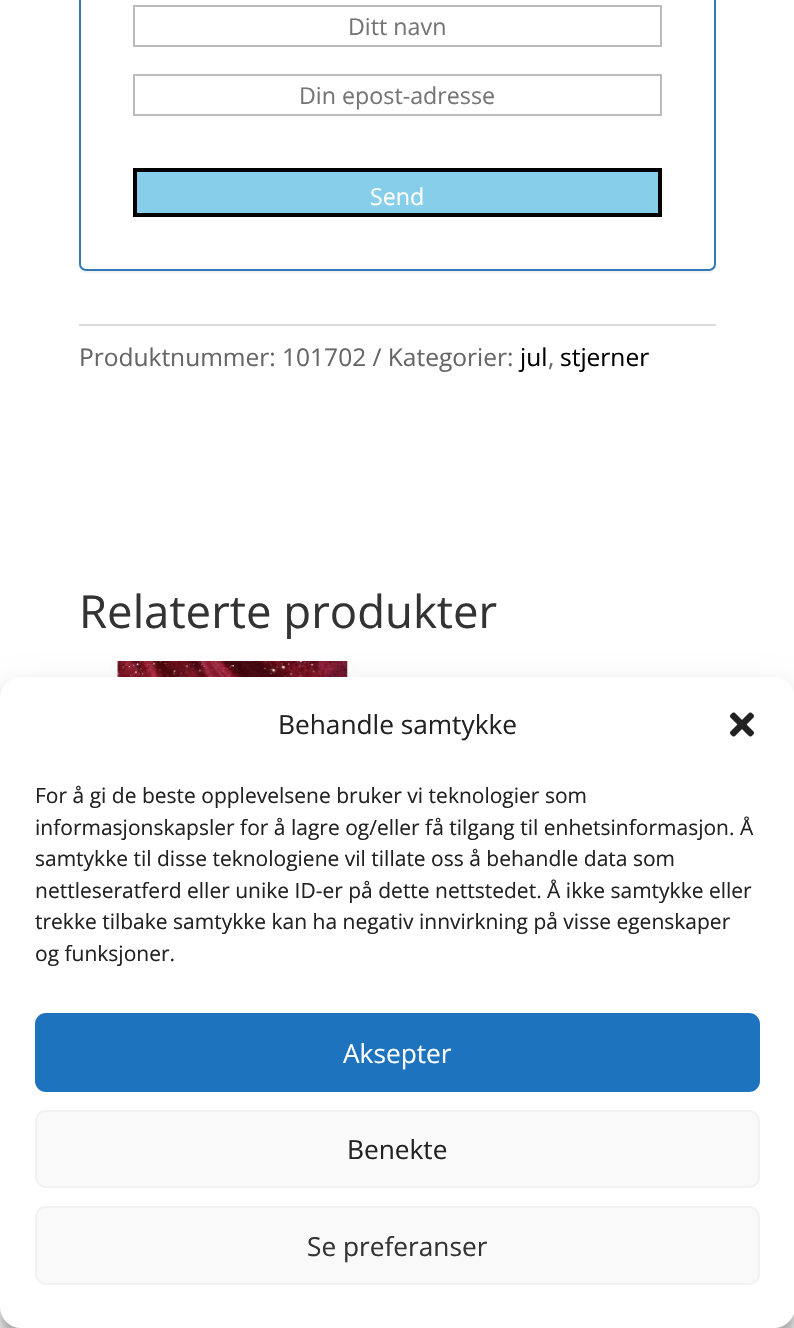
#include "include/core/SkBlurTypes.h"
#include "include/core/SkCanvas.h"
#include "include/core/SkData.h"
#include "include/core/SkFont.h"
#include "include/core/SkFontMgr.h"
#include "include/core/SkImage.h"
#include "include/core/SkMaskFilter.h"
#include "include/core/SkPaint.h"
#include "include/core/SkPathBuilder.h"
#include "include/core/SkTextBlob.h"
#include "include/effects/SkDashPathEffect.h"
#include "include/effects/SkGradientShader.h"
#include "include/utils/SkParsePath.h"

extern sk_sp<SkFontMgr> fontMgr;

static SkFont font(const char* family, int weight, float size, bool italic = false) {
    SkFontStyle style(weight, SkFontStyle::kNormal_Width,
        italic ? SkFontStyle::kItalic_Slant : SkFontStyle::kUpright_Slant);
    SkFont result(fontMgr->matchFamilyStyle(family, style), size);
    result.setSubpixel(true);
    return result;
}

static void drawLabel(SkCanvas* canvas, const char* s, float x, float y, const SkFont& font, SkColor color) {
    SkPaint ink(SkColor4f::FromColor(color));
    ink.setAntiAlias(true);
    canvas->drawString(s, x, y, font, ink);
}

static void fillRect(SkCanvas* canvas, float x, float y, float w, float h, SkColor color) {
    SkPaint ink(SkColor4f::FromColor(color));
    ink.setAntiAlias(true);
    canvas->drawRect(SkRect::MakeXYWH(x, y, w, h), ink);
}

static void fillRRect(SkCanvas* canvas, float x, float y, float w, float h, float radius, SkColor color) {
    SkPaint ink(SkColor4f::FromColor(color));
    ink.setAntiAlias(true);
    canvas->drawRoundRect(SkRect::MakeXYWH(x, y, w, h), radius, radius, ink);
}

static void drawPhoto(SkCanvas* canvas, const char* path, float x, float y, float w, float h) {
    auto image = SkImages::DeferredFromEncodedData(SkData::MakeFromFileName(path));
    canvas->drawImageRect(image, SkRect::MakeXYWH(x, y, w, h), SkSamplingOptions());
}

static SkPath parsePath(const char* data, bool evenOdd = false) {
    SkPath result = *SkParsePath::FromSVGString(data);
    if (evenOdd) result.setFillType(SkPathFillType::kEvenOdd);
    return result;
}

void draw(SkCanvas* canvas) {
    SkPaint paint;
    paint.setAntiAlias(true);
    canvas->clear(0xFFFFFFFF);
    canvas->save();
    canvas->clipPath(parsePath("M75 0H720V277H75ZM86-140H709C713-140 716-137 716-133V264C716 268 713 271 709 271H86C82 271 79 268 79 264V-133C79-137 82-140 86-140Z", true), true);
    paint.setColor(0x0D000000);
    paint.setMaskFilter(SkMaskFilter::MakeBlur(kNormal_SkBlurStyle, 1));
    canvas->drawRoundRect(SkRect::MakeXYWH(79, -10, 637, 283), 7, 7, paint);
    paint.setMaskFilter(nullptr);
    canvas->restore();
    paint.setStroke(true);
    paint.setStrokeWidth(2);
    paint.setColor(0xFF337AB7);
    canvas->drawRoundRect(SkRect::MakeXYWH(80, -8, 635, 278), 6, 6, paint);
    paint.setColor(0xFFBBBBBB);
    canvas->drawRect(SkRect::MakeXYWH(134, 6, 527, 40), paint);
    SkFont font1 = font("Open Sans", 400, 23.25f);
    drawLabel(canvas, "Ditt navn", 348, 35, font1, 0xFF757575);
    canvas->drawRect(SkRect::MakeXYWH(134, 75, 527, 40), paint);
    drawLabel(canvas, "Din epost-adresse", 299, 104, font1, 0xFF757575);
    paint.setStroke(false);
    paint.setColor(0xFF87CEEB);
    canvas->drawRect(SkRect::MakeXYWH(135, 170, 525, 45), paint);
    paint.setStroke(true);
    paint.setStrokeWidth(4);
    paint.setColor(0xFF000000);
    canvas->drawRect(SkRect::MakeXYWH(135, 170, 525, 45), paint);
    drawLabel(canvas, "Send", 370, 205, font1, 0xFFFFFFFF);
    fillRect(canvas, 79, 324, 637, 2, 0xFFDADADA);
    SkFont font2 = font("Open Sans", 400, 24.5f);
    drawLabel(canvas, "Produktnummer: 101702 / Kategorier:", 79, 366, font2, 0xFF666666);
    drawLabel(canvas, "jul", 520, 366, font2, 0xFF000000);
    drawLabel(canvas, ",", 548, 366, font2, 0xFF666666);
    drawLabel(canvas, "stjerner", 560, 366, font2, 0xFF000000);
    SkFont font3 = font("Open Sans", 400, 45.5f);
    drawLabel(canvas, "Relaterte produkter", 79, 628, font3, 0xFF333333);
    drawPhoto(canvas, "assets/img1.png", 111, 661, 246, 16);
    paint.setStroke(false);
    paint.setColor(0x3B000000);
    paint.setMaskFilter(SkMaskFilter::MakeBlur(kNormal_SkBlurStyle, 5));
    canvas->drawRoundRect(SkRect::MakeXYWH(0, 688, 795, 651), 21, 21, paint);
    paint.setMaskFilter(nullptr);
    paint.setColor(0x30000000);
    paint.setMaskFilter(SkMaskFilter::MakeBlur(kNormal_SkBlurStyle, 17.5f));
    canvas->drawRoundRect(SkRect::MakeXYWH(0, 695, 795, 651), 21, 21, paint);
    paint.setMaskFilter(nullptr);
    fillRRect(canvas, 0, 677, 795, 651, 21, 0xFFFFFFFF);
    SkFont font4 = font("Open Sans", 400, 26.25f);
    drawLabel(canvas, "Behandle samtykke", 278, 734, font4, 0xFF222222);
    drawPhoto(canvas, "assets/img2.png", 730, 712, 24, 25);
    SkFont font5 = font("Open Sans", 400, 21);
    drawLabel(canvas, "For å gi de beste opplevelsene bruker vi teknologier som", 35, 803, font5, 0xFF222222);
    drawLabel(canvas, "informasjonskapsler for å lagre og/eller få tilgang til enhetsinformasjon. Å", 35, 835, font5, 0xFF222222);
    drawLabel(canvas, "samtykke til disse teknologiene vil tillate oss å behandle data som", 35, 866, font5, 0xFF222222);
    drawLabel(canvas, "nettleseratferd eller unike ID-er på dette nettstedet. Å ikke samtykke eller", 35, 898, font5, 0xFF222222);
    drawLabel(canvas, "trekke tilbake samtykke kan ha negativ innvirkning på visse egenskaper", 35, 929, font5, 0xFF222222);
    drawLabel(canvas, "og funksjoner.", 35, 961, font5, 0xFF222222);
    paint.setColor(0xFF1E73BE);
    canvas->drawRoundRect(SkRect::MakeXYWH(36, 1014, 723, 77), 10, 10, paint);
    paint.setStroke(true);
    paint.setStrokeWidth(2);
    canvas->drawRoundRect(SkRect::MakeXYWH(36, 1014, 723, 77), 10, 10, paint);
    drawLabel(canvas, "Aksepter", 343, 1063, font4, 0xFFFFFFFF);
    paint.setStroke(false);
    paint.setColor(0xFFF9F9F9);
    canvas->drawRoundRect(SkRect::MakeXYWH(36, 1111, 723, 76), 10, 10, paint);
    paint.setStroke(true);
    paint.setColor(0xFFF2F2F2);
    canvas->drawRoundRect(SkRect::MakeXYWH(36, 1111, 723, 76), 10, 10, paint);
    drawLabel(canvas, "Benekte", 347, 1159, font4, 0xFF222222);
    paint.setStroke(false);
    paint.setColor(0xFFF9F9F9);
    canvas->drawRoundRect(SkRect::MakeXYWH(36, 1207, 723, 77), 10, 10, paint);
    paint.setStroke(true);
    paint.setColor(0xFFF2F2F2);
    canvas->drawRoundRect(SkRect::MakeXYWH(36, 1207, 723, 77), 10, 10, paint);
    drawLabel(canvas, "Se preferanser", 307, 1256, font4, 0xFF333333);
}
